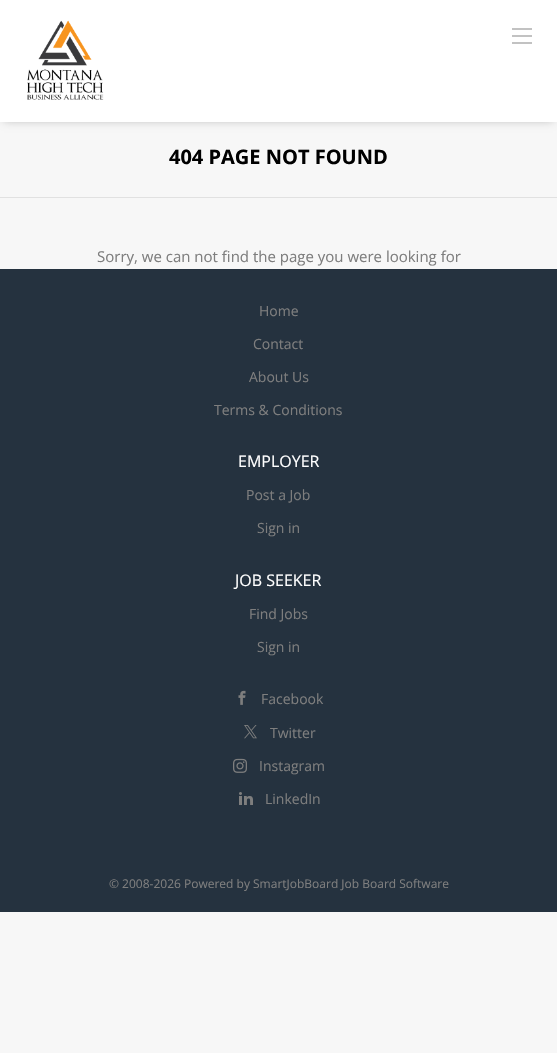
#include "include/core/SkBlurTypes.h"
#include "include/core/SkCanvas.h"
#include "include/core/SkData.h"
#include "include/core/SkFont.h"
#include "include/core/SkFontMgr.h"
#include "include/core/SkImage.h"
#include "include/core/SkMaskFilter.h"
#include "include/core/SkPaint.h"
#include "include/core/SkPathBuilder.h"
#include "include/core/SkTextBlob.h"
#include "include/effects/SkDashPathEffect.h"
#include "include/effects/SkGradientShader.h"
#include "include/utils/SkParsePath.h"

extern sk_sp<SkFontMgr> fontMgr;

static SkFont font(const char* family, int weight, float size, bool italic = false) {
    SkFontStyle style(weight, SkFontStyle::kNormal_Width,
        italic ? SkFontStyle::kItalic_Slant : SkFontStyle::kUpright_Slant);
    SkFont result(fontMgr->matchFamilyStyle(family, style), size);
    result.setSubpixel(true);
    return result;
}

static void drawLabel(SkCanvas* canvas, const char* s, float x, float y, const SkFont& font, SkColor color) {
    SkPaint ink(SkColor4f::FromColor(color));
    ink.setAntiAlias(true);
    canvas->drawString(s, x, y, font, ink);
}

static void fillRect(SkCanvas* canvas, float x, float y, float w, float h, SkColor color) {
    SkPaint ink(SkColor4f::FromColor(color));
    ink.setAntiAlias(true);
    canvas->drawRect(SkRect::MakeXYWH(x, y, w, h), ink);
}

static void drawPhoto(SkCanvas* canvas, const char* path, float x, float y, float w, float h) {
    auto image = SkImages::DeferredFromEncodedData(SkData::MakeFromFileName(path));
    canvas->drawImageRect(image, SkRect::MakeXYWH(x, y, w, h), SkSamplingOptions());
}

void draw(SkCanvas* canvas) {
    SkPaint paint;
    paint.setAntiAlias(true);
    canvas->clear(0xFFF7F7F7);
    paint.setColor(0x4D000000);
    paint.setMaskFilter(SkMaskFilter::MakeBlur(kNormal_SkBlurStyle, 4.5f));
    canvas->drawRect(SkRect::MakeXYWH(4, 6, 549, 114), paint);
    paint.setMaskFilter(nullptr);
    fillRect(canvas, 0, 0, 557, 122, 0xFFFFFFFF);
    drawPhoto(canvas, "assets/img1.png", 27, 20, 77, 80);
    fillRect(canvas, 512, 35, 20, 2, 0xFFC2C2C2);
    fillRect(canvas, 512, 28, 20, 2, 0xFFC2C2C2);
    fillRect(canvas, 512, 42, 20, 2, 0xFFC2C2C2);
    fillRect(canvas, 0, 197, 557, 1, 0xFFE1E1E1);
    SkFont font1 = font("Open Sans", 700, 20);
    drawLabel(canvas, "404 PAGE NOT FOUND", 169, 164, font1, 0xFF000000);
    SkFont font2 = font("Open Sans", 400, 15);
    drawLabel(canvas, "Sorry, we can not find the page you were looking for", 97, 262, font2, 0xFF7E7E7E);
    fillRect(canvas, 0, 269, 557, 643, 0xFF25323F);
    SkFont font3 = font("Open Sans", 400, 14);
    drawLabel(canvas, "Home", 259, 316, font3, 0xFF7E7E7E);
    drawLabel(canvas, "Contact", 253, 349, font3, 0xFF7E7E7E);
    drawLabel(canvas, "About Us", 249, 382, font3, 0xFF7E7E7E);
    drawLabel(canvas, "Terms & Conditions", 214, 415, font3, 0xFF7E7E7E);
    SkFont font4 = font("Open Sans", 400, 16);
    drawLabel(canvas, "EMPLOYER", 238, 467, font4, 0xFFFFFFFF);
    drawLabel(canvas, "Post a Job", 246, 500, font3, 0xFF7E7E7E);
    drawLabel(canvas, "Sign in", 257, 533, font3, 0xFF7E7E7E);
    drawLabel(canvas, "JOB SEEKER", 235, 586, font4, 0xFFFFFFFF);
    drawLabel(canvas, "Find Jobs", 249, 619, font3, 0xFF7E7E7E);
    drawLabel(canvas, "Sign in", 257, 652, font3, 0xFF7E7E7E);
    drawPhoto(canvas, "assets/img2.png", 238, 690, 8, 15);
    drawLabel(canvas, "Facebook", 261, 704, font3, 0xFF7E7E7E);
    drawPhoto(canvas, "assets/img3.png", 244, 725, 13, 14);
    drawLabel(canvas, "Twitter", 270, 738, font3, 0xFF7E7E7E);
    drawPhoto(canvas, "assets/img4.png", 233, 758, 14, 15);
    drawLabel(canvas, "Instagram", 259, 771, font3, 0xFF7E7E7E);
    drawPhoto(canvas, "assets/img5.png", 239, 792, 14, 13);
    drawLabel(canvas, "LinkedIn", 265, 804, font3, 0xFF7E7E7E);
    SkFont font5 = font("Open Sans", 400, 12);
    drawLabel(canvas, "© 2008-2026 Powered by SmartJobBoard Job Board Software", 109, 888, font5, 0xFF7E7E7E);
}
